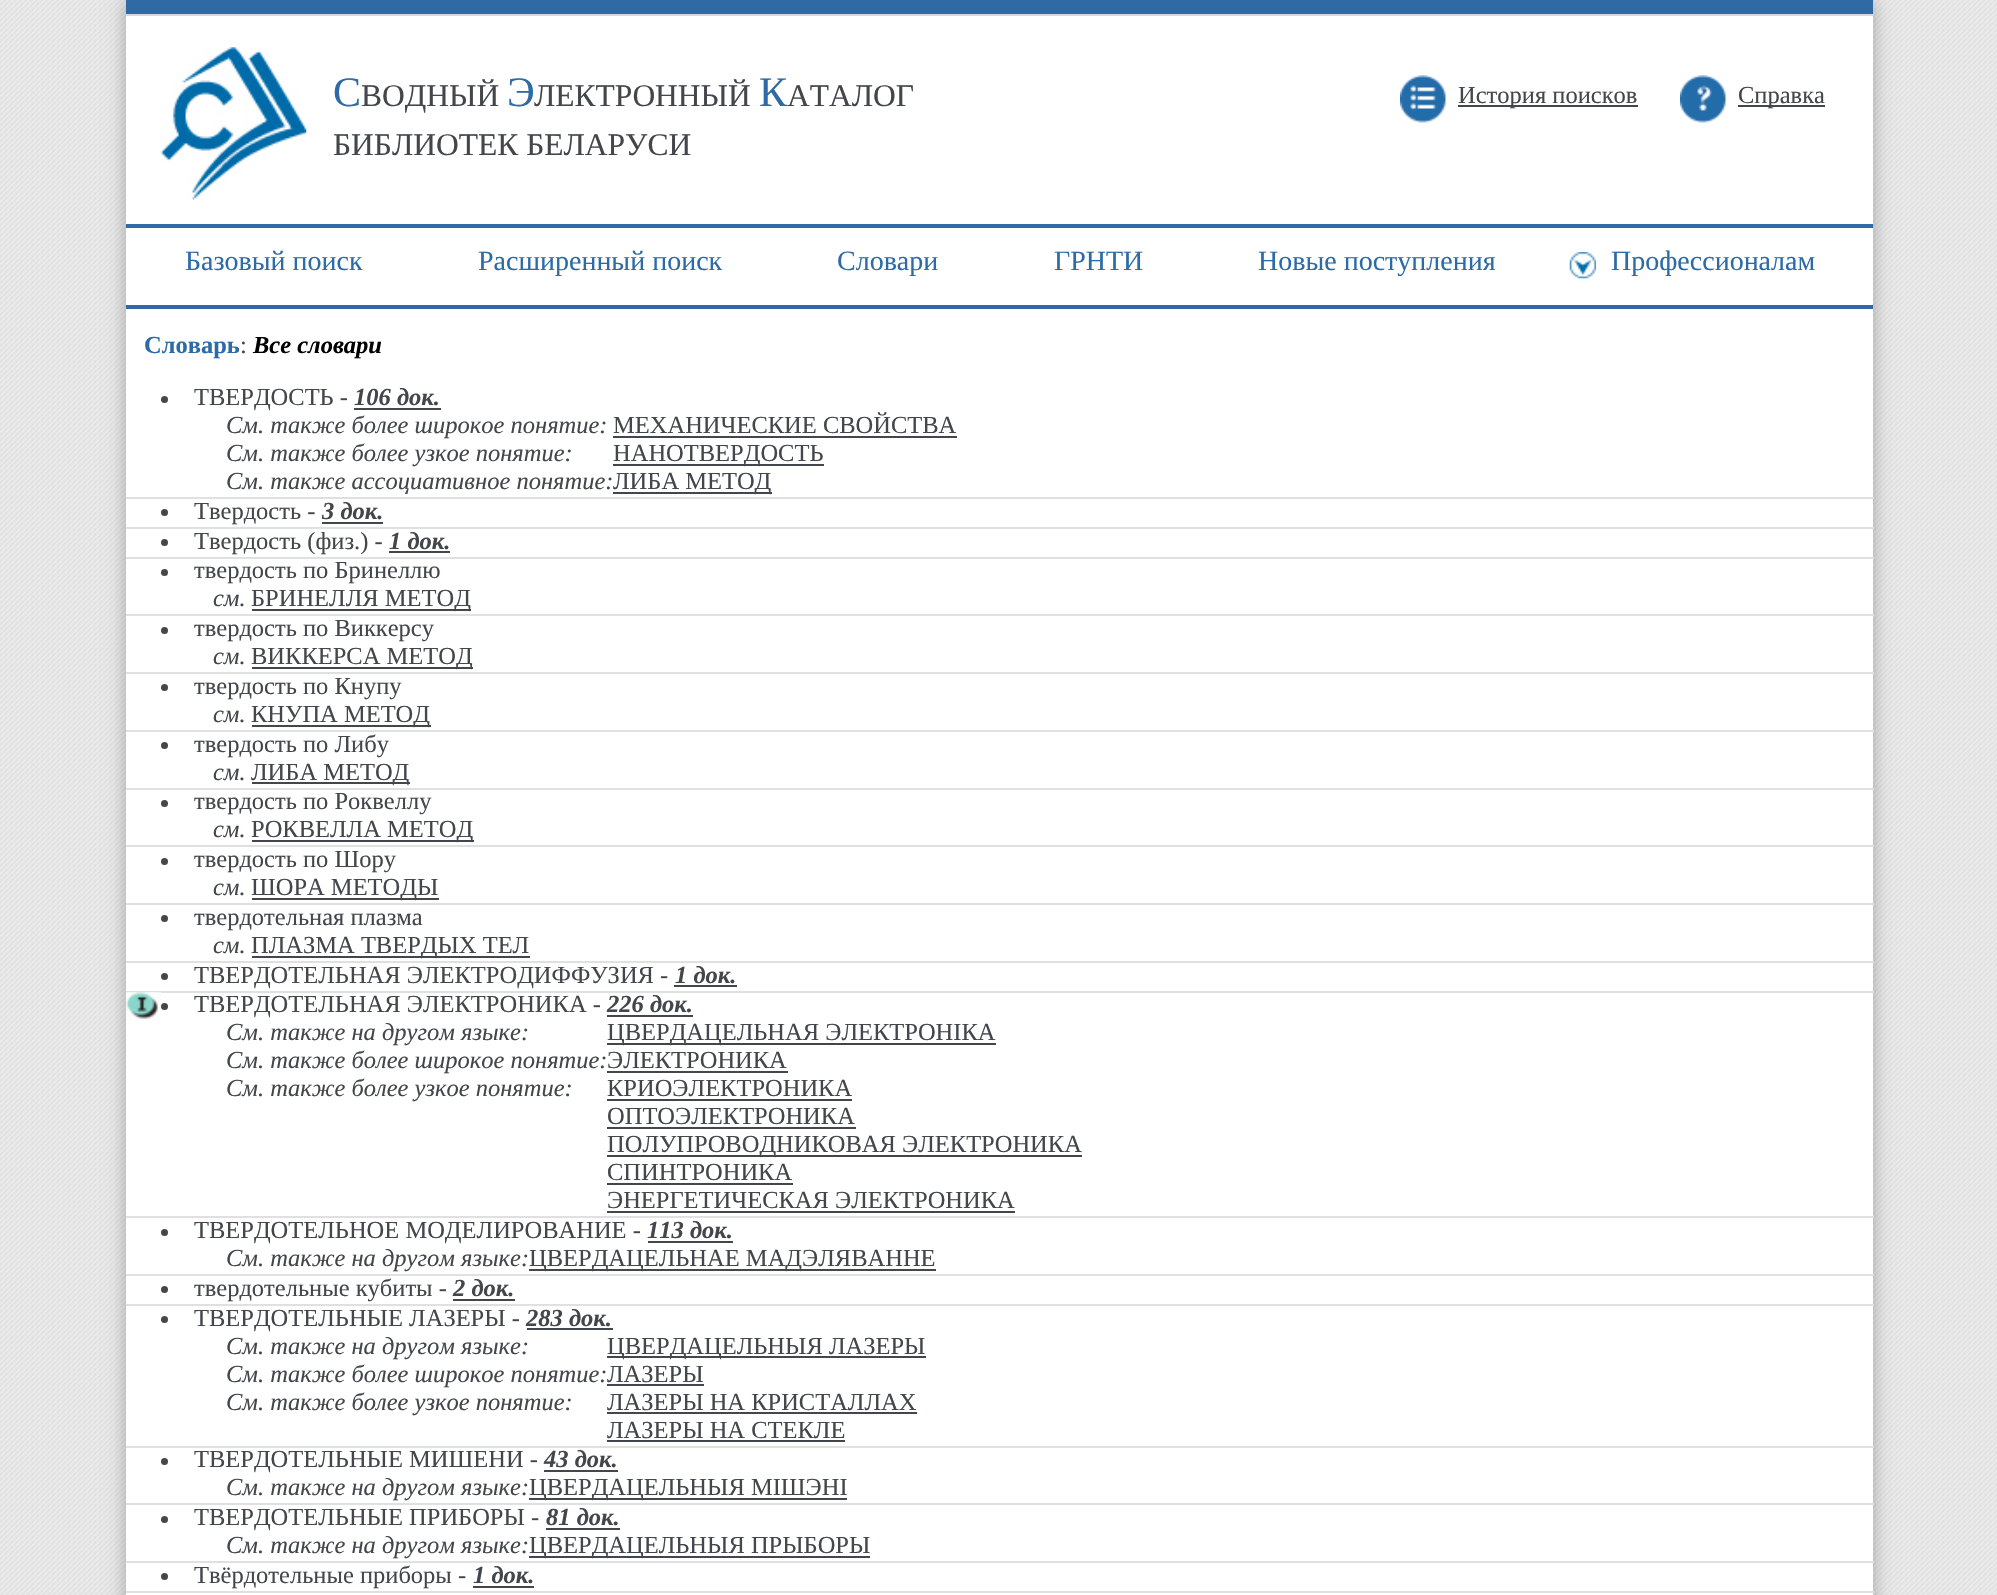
#include "include/core/SkBlurTypes.h"
#include "include/core/SkCanvas.h"
#include "include/core/SkData.h"
#include "include/core/SkFont.h"
#include "include/core/SkFontMgr.h"
#include "include/core/SkImage.h"
#include "include/core/SkMaskFilter.h"
#include "include/core/SkPaint.h"
#include "include/core/SkPathBuilder.h"
#include "include/core/SkTextBlob.h"
#include "include/effects/SkDashPathEffect.h"
#include "include/effects/SkGradientShader.h"
#include "include/utils/SkParsePath.h"

extern sk_sp<SkFontMgr> fontMgr;

static SkFont font(const char* family, int weight, float size, bool italic = false) {
    SkFontStyle style(weight, SkFontStyle::kNormal_Width,
        italic ? SkFontStyle::kItalic_Slant : SkFontStyle::kUpright_Slant);
    SkFont result(fontMgr->matchFamilyStyle(family, style), size);
    result.setSubpixel(true);
    return result;
}

static void drawLabel(SkCanvas* canvas, const char* s, float x, float y, const SkFont& font, SkColor color) {
    SkPaint ink(SkColor4f::FromColor(color));
    ink.setAntiAlias(true);
    canvas->drawString(s, x, y, font, ink);
}

static void fillRect(SkCanvas* canvas, float x, float y, float w, float h, SkColor color) {
    SkPaint ink(SkColor4f::FromColor(color));
    ink.setAntiAlias(true);
    canvas->drawRect(SkRect::MakeXYWH(x, y, w, h), ink);
}

static void drawPhoto(SkCanvas* canvas, const char* path, float x, float y, float w, float h) {
    auto image = SkImages::DeferredFromEncodedData(SkData::MakeFromFileName(path));
    canvas->drawImageRect(image, SkRect::MakeXYWH(x, y, w, h), SkSamplingOptions());
}

void draw(SkCanvas* canvas) {
    SkPaint paint;
    paint.setAntiAlias(true);
    canvas->clear(0xFFFFFFFF);
    drawPhoto(canvas, "assets/img1.png", 0, 0, 1997, 1595);
    paint.setColor(0x4D000000);
    paint.setMaskFilter(SkMaskFilter::MakeBlur(kNormal_SkBlurStyle, 9));
    canvas->drawRect(SkRect::MakeXYWH(126, 0, 1747, 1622), paint);
    paint.setMaskFilter(nullptr);
    fillRect(canvas, 126, 16, 1747, 1579, 0xFFFFFFFF);
    fillRect(canvas, 126, 0, 1747, 14, 0xFF2E6BA6);
    fillRect(canvas, 126, 14, 1748, 2, 0xFFCED8E6);
    drawPhoto(canvas, "assets/img2.png", 160, 47, 147, 153);
    SkFont font1 = font("Liberation Serif", 400, 42);
    drawLabel(canvas, "С", 333, 106, font1, 0xFF2E6BA6);
    SkFont font2 = font("Liberation Serif", 400, 31.5f);
    drawLabel(canvas, "ВОДНЫЙ", 361, 106, font2, 0xFF43474C);
    drawLabel(canvas, "Э", 507, 106, font1, 0xFF2E6BA6);
    drawLabel(canvas, "ЛЕКТРОННЫЙ", 534, 106, font2, 0xFF43474C);
    drawLabel(canvas, "К", 759, 106, font1, 0xFF2E6BA6);
    drawLabel(canvas, "АТАЛОГ", 787, 106, font2, 0xFF43474C);
    drawLabel(canvas, "БИБЛИОТЕК БЕЛАРУСИ", 333, 155, font2, 0xFF43474C);
    drawPhoto(canvas, "assets/img3.png", 1400, 75, 46, 48);
    fillRect(canvas, 1458, 105, 180, 2, 0xFF43474C);
    SkFont font3 = font("Liberation Serif", 400, 24.5f);
    drawLabel(canvas, "История поисков", 1458, 103, font3, 0xFF43474C);
    drawPhoto(canvas, "assets/img4.png", 1680, 75, 46, 48);
    fillRect(canvas, 1738, 105, 87, 2, 0xFF43474C);
    drawLabel(canvas, "Справка", 1738, 103, font3, 0xFF43474C);
    fillRect(canvas, 126, 224, 1747, 4, 0xFF2E6BA6);
    fillRect(canvas, 126, 305, 1747, 4, 0xFF2E6BA6);
    SkFont font4 = font("Liberation Serif", 400, 28);
    drawLabel(canvas, "Базовый поиск", 185, 270, font4, 0xFF2E6BA6);
    drawLabel(canvas, "Расширенный поиск", 478, 270, font4, 0xFF2E6BA6);
    drawLabel(canvas, "Cловари", 837, 270, font4, 0xFF2E6BA6);
    drawLabel(canvas, "ГРНТИ", 1054, 270, font4, 0xFF2E6BA6);
    drawLabel(canvas, "Новые поступления", 1258, 270, font4, 0xFF2E6BA6);
    drawPhoto(canvas, "assets/img5.png", 1569, 252, 27, 27);
    drawLabel(canvas, "Профессионалам", 1611, 270, font4, 0xFF2E6BA6);
    SkFont font5 = font("Liberation Serif", 700, 24.5f);
    drawLabel(canvas, "Словарь", 144, 353, font5, 0xFF2E6BA6);
    drawLabel(canvas, ":", 240, 353, font3, 0xFF43474C);
    SkFont font6 = font("Liberation Serif", 700, 24.5f, true);
    drawLabel(canvas, "Все словари", 253, 353, font6, 0xFF000000);
    paint.setColor(0xFF43474C);
    canvas->drawCircle(164.5f, 399.5f, 3.5f, paint);
    fillRect(canvas, 126, 497, 1748, 2, 0xFFE0E0E0);
    drawLabel(canvas, "ТВЕРДОСТЬ -", 194, 405, font3, 0xFF43474C);
    drawLabel(canvas, "106 док.", 354, 405, font6, 0xFF43474C);
    fillRect(canvas, 354, 408, 87, 2, 0xFF43474C);
    SkFont font7 = font("Liberation Serif", 400, 24.5f, true);
    drawLabel(canvas, "См. также более широкое понятие:", 226, 433, font7, 0xFF43474C);
    drawLabel(canvas, "МЕХАНИЧЕСКИЕ СВОЙСТВА", 613, 433, font3, 0xFF43474C);
    fillRect(canvas, 613, 436, 344, 2, 0xFF43474C);
    drawLabel(canvas, "См. также более узкое понятие:", 226, 461, font7, 0xFF43474C);
    fillRect(canvas, 613, 464, 211, 2, 0xFF43474C);
    drawLabel(canvas, "НАНОТВЕРДОСТЬ", 613, 461, font3, 0xFF43474C);
    drawLabel(canvas, "См. также ассоциативное понятие:", 226, 489, font7, 0xFF43474C);
    fillRect(canvas, 613, 492, 159, 2, 0xFF43474C);
    drawLabel(canvas, "ЛИБА МЕТОД", 613, 489, font3, 0xFF43474C);
    canvas->drawCircle(164.5f, 512.5f, 3.5f, paint);
    fillRect(canvas, 126, 527, 1748, 2, 0xFFE0E0E0);
    drawLabel(canvas, "Твердость -", 194, 519, font3, 0xFF43474C);
    drawLabel(canvas, "3 док.", 322, 519, font6, 0xFF43474C);
    fillRect(canvas, 322, 522, 61, 2, 0xFF43474C);
    canvas->drawCircle(164.5f, 542.5f, 3.5f, paint);
    fillRect(canvas, 126, 557, 1748, 2, 0xFFE0E0E0);
    drawLabel(canvas, "Твердость (физ.) -", 194, 549, font3, 0xFF43474C);
    drawLabel(canvas, "1 док.", 389, 549, font6, 0xFF43474C);
    fillRect(canvas, 389, 551, 61, 2, 0xFF43474C);
    canvas->drawCircle(164.5f, 572.5f, 3.5f, paint);
    fillRect(canvas, 126, 614, 1748, 2, 0xFFE0E0E0);
    drawLabel(canvas, "твердость по Бринеллю", 194, 578, font3, 0xFF43474C);
    drawLabel(canvas, "см.", 213, 606, font7, 0xFF43474C);
    fillRect(canvas, 252, 609, 219, 2, 0xFF43474C);
    drawLabel(canvas, "БРИНЕЛЛЯ МЕТОД", 251, 606, font3, 0xFF43474C);
    canvas->drawCircle(164.5f, 630.5f, 3.5f, paint);
    fillRect(canvas, 126, 672, 1748, 2, 0xFFE0E0E0);
    drawLabel(canvas, "твердость по Виккерсу", 194, 636, font3, 0xFF43474C);
    drawLabel(canvas, "см.", 213, 664, font7, 0xFF43474C);
    fillRect(canvas, 252, 667, 221, 2, 0xFF43474C);
    drawLabel(canvas, "ВИККЕРСА МЕТОД", 251, 664, font3, 0xFF43474C);
    canvas->drawCircle(164.5f, 687.5f, 3.5f, paint);
    fillRect(canvas, 126, 730, 1748, 2, 0xFFE0E0E0);
    drawLabel(canvas, "твердость по Кнупу", 194, 694, font3, 0xFF43474C);
    drawLabel(canvas, "см.", 213, 722, font7, 0xFF43474C);
    fillRect(canvas, 252, 725, 179, 2, 0xFF43474C);
    drawLabel(canvas, "КНУПА МЕТОД", 251, 722, font3, 0xFF43474C);
    canvas->drawCircle(164.5f, 745.5f, 3.5f, paint);
    fillRect(canvas, 126, 788, 1748, 2, 0xFFE0E0E0);
    drawLabel(canvas, "твердость по Либу", 194, 752, font3, 0xFF43474C);
    drawLabel(canvas, "см.", 213, 780, font7, 0xFF43474C);
    fillRect(canvas, 252, 782, 158, 2, 0xFF43474C);
    drawLabel(canvas, "ЛИБА МЕТОД", 251, 780, font3, 0xFF43474C);
    canvas->drawCircle(164.5f, 803.5f, 3.5f, paint);
    fillRect(canvas, 126, 845, 1748, 2, 0xFFE0E0E0);
    drawLabel(canvas, "твердость по Роквеллу", 194, 809, font3, 0xFF43474C);
    drawLabel(canvas, "см.", 213, 837, font7, 0xFF43474C);
    fillRect(canvas, 252, 840, 222, 2, 0xFF43474C);
    drawLabel(canvas, "РОКВЕЛЛА МЕТОД", 251, 837, font3, 0xFF43474C);
    canvas->drawCircle(164.5f, 861.5f, 3.5f, paint);
    fillRect(canvas, 126, 903, 1748, 2, 0xFFE0E0E0);
    drawLabel(canvas, "твердость по Шору", 194, 867, font3, 0xFF43474C);
    drawLabel(canvas, "см.", 213, 895, font7, 0xFF43474C);
    fillRect(canvas, 252, 898, 187, 2, 0xFF43474C);
    drawLabel(canvas, "ШОРА МЕТОДЫ", 251, 895, font3, 0xFF43474C);
    canvas->drawCircle(164.5f, 918.5f, 3.5f, paint);
    fillRect(canvas, 126, 961, 1748, 2, 0xFFE0E0E0);
    drawLabel(canvas, "твердотельная плазма", 194, 925, font3, 0xFF43474C);
    drawLabel(canvas, "см.", 213, 953, font7, 0xFF43474C);
    fillRect(canvas, 252, 956, 278, 2, 0xFF43474C);
    drawLabel(canvas, "ПЛАЗМА ТВЕРДЫХ ТЕЛ", 251, 953, font3, 0xFF43474C);
    canvas->drawCircle(164.5f, 976.5f, 3.5f, paint);
    fillRect(canvas, 126, 991, 1748, 2, 0xFFE0E0E0);
    drawLabel(canvas, "ТВЕРДОТЕЛЬНАЯ ЭЛЕКТРОДИФФУЗИЯ -", 194, 983, font3, 0xFF43474C);
    drawLabel(canvas, "1 док.", 675, 983, font6, 0xFF43474C);
    fillRect(canvas, 674, 985, 63, 2, 0xFF43474C);
    drawPhoto(canvas, "assets/img6.png", 126, 992, 35, 28);
    canvas->drawCircle(164.5f, 1006.5f, 3.5f, paint);
    fillRect(canvas, 126, 1216, 1748, 2, 0xFFE0E0E0);
    drawLabel(canvas, "ТВЕРДОТЕЛЬНАЯ ЭЛЕКТРОНИКА -", 194, 1012, font3, 0xFF43474C);
    drawLabel(canvas, "226 док.", 607, 1012, font6, 0xFF43474C);
    fillRect(canvas, 607, 1015, 86, 2, 0xFF43474C);
    drawLabel(canvas, "См. также на другом языке:", 226, 1040, font7, 0xFF43474C);
    fillRect(canvas, 607, 1043, 389, 2, 0xFF43474C);
    drawLabel(canvas, "ЦВЕРДАЦЕЛЬНАЯ ЭЛЕКТРОНІКА", 607, 1040, font3, 0xFF43474C);
    drawLabel(canvas, "См. также более широкое понятие:", 226, 1068, font7, 0xFF43474C);
    drawLabel(canvas, "ЭЛЕКТРОНИКА", 607, 1068, font3, 0xFF43474C);
    fillRect(canvas, 607, 1071, 181, 2, 0xFF43474C);
    drawLabel(canvas, "См. также более узкое понятие:", 226, 1096, font7, 0xFF43474C);
    drawLabel(canvas, "КРИОЭЛЕКТРОНИКА", 607, 1096, font3, 0xFF43474C);
    fillRect(canvas, 607, 1099, 245, 2, 0xFF43474C);
    drawLabel(canvas, "ОПТОЭЛЕКТРОНИКА", 607, 1124, font3, 0xFF43474C);
    fillRect(canvas, 607, 1127, 249, 2, 0xFF43474C);
    fillRect(canvas, 607, 1155, 475, 2, 0xFF43474C);
    drawLabel(canvas, "ПОЛУПРОВОДНИКОВАЯ ЭЛЕКТРОНИКА", 607, 1152, font3, 0xFF43474C);
    drawLabel(canvas, "СПИНТРОНИКА", 607, 1180, font3, 0xFF43474C);
    fillRect(canvas, 607, 1183, 186, 2, 0xFF43474C);
    drawLabel(canvas, "ЭНЕРГЕТИЧЕСКАЯ ЭЛЕКТРОНИКА", 607, 1208, font3, 0xFF43474C);
    fillRect(canvas, 607, 1211, 408, 2, 0xFF43474C);
    canvas->drawCircle(164.5f, 1232.5f, 3.5f, paint);
    fillRect(canvas, 126, 1274, 1748, 2, 0xFFE0E0E0);
    drawLabel(canvas, "ТВЕРДОТЕЛЬНОЕ МОДЕЛИРОВАНИЕ -", 194, 1238, font3, 0xFF43474C);
    drawLabel(canvas, "113 док.", 647, 1238, font6, 0xFF43474C);
    fillRect(canvas, 648, 1241, 85, 2, 0xFF43474C);
    drawLabel(canvas, "См. также на другом языке:", 226, 1266, font7, 0xFF43474C);
    fillRect(canvas, 529, 1269, 407, 2, 0xFF43474C);
    drawLabel(canvas, "ЦВЕРДАЦЕЛЬНАЕ МАДЭЛЯВАННЕ", 529, 1266, font3, 0xFF43474C);
    canvas->drawCircle(164.5f, 1289.5f, 3.5f, paint);
    fillRect(canvas, 126, 1304, 1748, 2, 0xFFE0E0E0);
    drawLabel(canvas, "твердотельные кубиты -", 194, 1296, font3, 0xFF43474C);
    drawLabel(canvas, "2 док.", 453, 1296, font6, 0xFF43474C);
    fillRect(canvas, 453, 1299, 62, 2, 0xFF43474C);
    canvas->drawCircle(164.5f, 1319.5f, 3.5f, paint);
    fillRect(canvas, 126, 1446, 1748, 2, 0xFFE0E0E0);
    drawLabel(canvas, "ТВЕРДОТЕЛЬНЫЕ ЛАЗЕРЫ -", 194, 1326, font3, 0xFF43474C);
    drawLabel(canvas, "283 док.", 526, 1326, font6, 0xFF43474C);
    fillRect(canvas, 527, 1328, 86, 2, 0xFF43474C);
    drawLabel(canvas, "См. также на другом языке:", 226, 1354, font7, 0xFF43474C);
    fillRect(canvas, 607, 1356, 319, 2, 0xFF43474C);
    drawLabel(canvas, "ЦВЕРДАЦЕЛЬНЫЯ ЛАЗЕРЫ", 607, 1354, font3, 0xFF43474C);
    drawLabel(canvas, "См. также более широкое понятие:", 226, 1382, font7, 0xFF43474C);
    drawLabel(canvas, "ЛАЗЕРЫ", 607, 1382, font3, 0xFF43474C);
    fillRect(canvas, 607, 1384, 97, 2, 0xFF43474C);
    drawLabel(canvas, "См. также более узкое понятие:", 226, 1410, font7, 0xFF43474C);
    drawLabel(canvas, "ЛАЗЕРЫ НА КРИСТАЛЛАХ", 607, 1410, font3, 0xFF43474C);
    fillRect(canvas, 607, 1412, 310, 2, 0xFF43474C);
    drawLabel(canvas, "ЛАЗЕРЫ НА СТЕКЛЕ", 607, 1438, font3, 0xFF43474C);
    fillRect(canvas, 607, 1440, 238, 2, 0xFF43474C);
    canvas->drawCircle(164.5f, 1461.5f, 3.5f, paint);
    fillRect(canvas, 126, 1503, 1748, 2, 0xFFE0E0E0);
    drawLabel(canvas, "ТВЕРДОТЕЛЬНЫЕ МИШЕНИ -", 194, 1467, font3, 0xFF43474C);
    drawLabel(canvas, "43 док.", 544, 1467, font6, 0xFF43474C);
    fillRect(canvas, 544, 1470, 74, 2, 0xFF43474C);
    drawLabel(canvas, "См. также на другом языке:", 226, 1495, font7, 0xFF43474C);
    fillRect(canvas, 529, 1498, 318, 2, 0xFF43474C);
    drawLabel(canvas, "ЦВЕРДАЦЕЛЬНЫЯ МІШЭНІ", 529, 1495, font3, 0xFF43474C);
    canvas->drawCircle(164.5f, 1519.5f, 3.5f, paint);
    fillRect(canvas, 126, 1561, 1748, 2, 0xFFE0E0E0);
    drawLabel(canvas, "ТВЕРДОТЕЛЬНЫЕ ПРИБОРЫ -", 194, 1525, font3, 0xFF43474C);
    drawLabel(canvas, "81 док.", 546, 1525, font6, 0xFF43474C);
    fillRect(canvas, 546, 1528, 74, 2, 0xFF43474C);
    drawLabel(canvas, "См. также на другом языке:", 226, 1553, font7, 0xFF43474C);
    fillRect(canvas, 529, 1556, 341, 2, 0xFF43474C);
    drawLabel(canvas, "ЦВЕРДАЦЕЛЬНЫЯ ПРЫБОРЫ", 529, 1553, font3, 0xFF43474C);
    canvas->drawCircle(164.5f, 1576.5f, 3.5f, paint);
    fillRect(canvas, 126, 1591, 1748, 2, 0xFFE0E0E0);
    drawLabel(canvas, "Твёрдотельные приборы -", 194, 1583, font3, 0xFF43474C);
    drawLabel(canvas, "1 док.", 473, 1583, font6, 0xFF43474C);
    fillRect(canvas, 473, 1586, 61, 2, 0xFF43474C);
}
